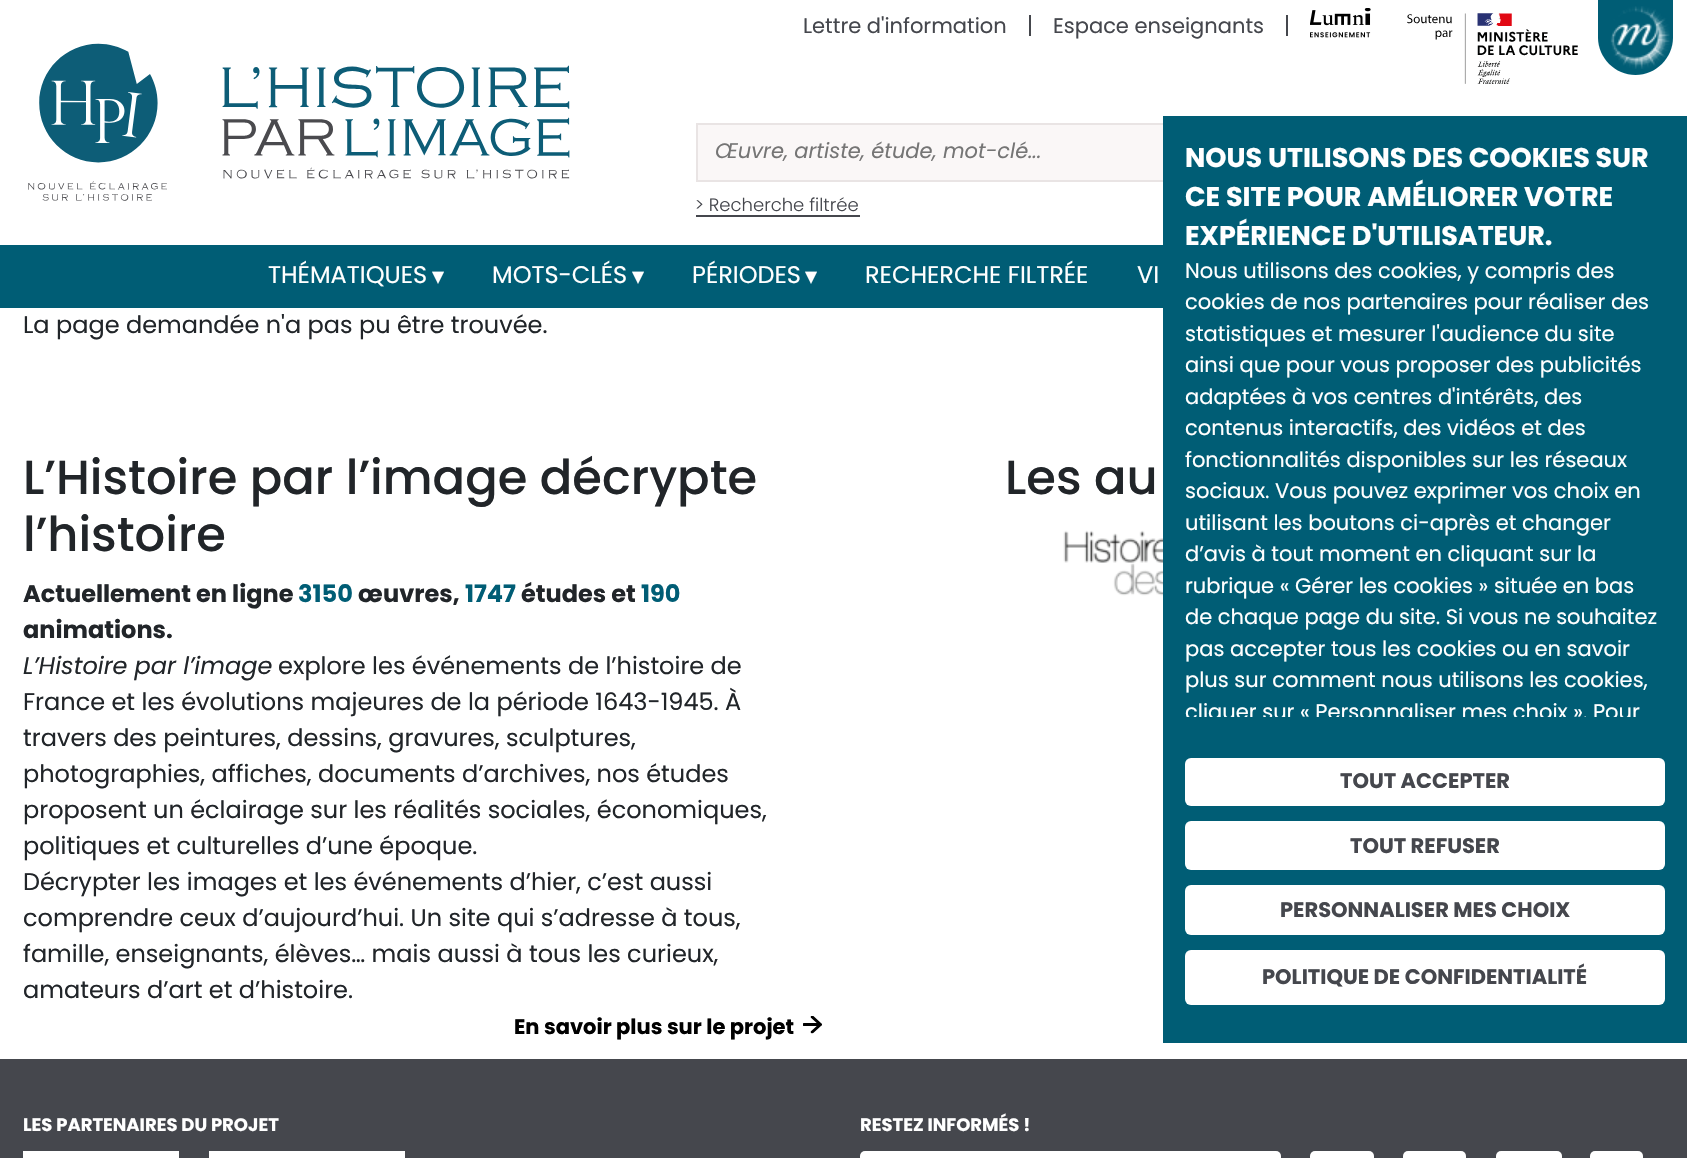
#include "include/core/SkBlurTypes.h"
#include "include/core/SkCanvas.h"
#include "include/core/SkData.h"
#include "include/core/SkFont.h"
#include "include/core/SkFontMgr.h"
#include "include/core/SkImage.h"
#include "include/core/SkMaskFilter.h"
#include "include/core/SkPaint.h"
#include "include/core/SkPathBuilder.h"
#include "include/core/SkTextBlob.h"
#include "include/effects/SkDashPathEffect.h"
#include "include/effects/SkGradientShader.h"
#include "include/utils/SkParsePath.h"

extern sk_sp<SkFontMgr> fontMgr;

static SkFont font(const char* family, int weight, float size, bool italic = false) {
    SkFontStyle style(weight, SkFontStyle::kNormal_Width,
        italic ? SkFontStyle::kItalic_Slant : SkFontStyle::kUpright_Slant);
    SkFont result(fontMgr->matchFamilyStyle(family, style), size);
    result.setSubpixel(true);
    return result;
}

static void drawLabel(SkCanvas* canvas, const char* s, float x, float y, const SkFont& font, SkColor color) {
    SkPaint ink(SkColor4f::FromColor(color));
    ink.setAntiAlias(true);
    canvas->drawString(s, x, y, font, ink);
}

static void fillRect(SkCanvas* canvas, float x, float y, float w, float h, SkColor color) {
    SkPaint ink(SkColor4f::FromColor(color));
    ink.setAntiAlias(true);
    canvas->drawRect(SkRect::MakeXYWH(x, y, w, h), ink);
}

static void fillRRect(SkCanvas* canvas, float x, float y, float w, float h, float radius, SkColor color) {
    SkPaint ink(SkColor4f::FromColor(color));
    ink.setAntiAlias(true);
    canvas->drawRoundRect(SkRect::MakeXYWH(x, y, w, h), radius, radius, ink);
}

static void drawPhoto(SkCanvas* canvas, const char* path, float x, float y, float w, float h) {
    auto image = SkImages::DeferredFromEncodedData(SkData::MakeFromFileName(path));
    canvas->drawImageRect(image, SkRect::MakeXYWH(x, y, w, h), SkSamplingOptions());
}

static SkPath parsePath(const char* data, bool evenOdd = false) {
    SkPath result = *SkParsePath::FromSVGString(data);
    if (evenOdd) result.setFillType(SkPathFillType::kEvenOdd);
    return result;
}

void draw(SkCanvas* canvas) {
    SkPaint paint;
    paint.setAntiAlias(true);
    canvas->clear(0xFFFFFFFF);
    fillRect(canvas, 1029, 15, 2, 21, 0xFF45474D);
    SkFont font1 = font("Poppins", 400, 21);
    drawLabel(canvas, "Lettre d'information", 803, 33, font1, 0xFF45474D);
    fillRect(canvas, 1286, 15, 2, 21, 0xFF45474D);
    drawLabel(canvas, "Espace enseignants", 1053, 33, font1, 0xFF45474D);
    drawPhoto(canvas, "assets/img1.png", 1310, 8, 61, 30);
    drawPhoto(canvas, "assets/img2.png", 1407, 13, 171, 71);
    paint.setColor(0xFF005D75);
    canvas->drawPath(parsePath("M1598 0H1673V37.5C1673 58 1656 75 1635.5 75C1615 75 1598 58 1598 37.5Z"), paint);
    drawPhoto(canvas, "assets/img3.png", 1610, 6, 60, 63);
    drawPhoto(canvas, "assets/img4.png", 28, 43, 139, 158);
    drawPhoto(canvas, "assets/img5.png", 222, 65, 348, 114);
    fillRect(canvas, 698, 125, 465, 55, 0xFFFAF7F7);
    paint.setStroke(true);
    paint.setStrokeWidth(2);
    paint.setColor(0xFFE9E4E4);
    canvas->drawRect(SkRect::MakeXYWH(697, 124, 520, 57), paint);
    SkFont font2 = font("Poppins", 400, 21, true);
    drawLabel(canvas, "Œuvre, artiste, étude, mot-clé...", 715, 158, font2, 0xFF757575);
    SkFont font3 = font("Poppins", 300, 18);
    drawLabel(canvas, "> Recherche filtrée", 695, 211, font3, 0xFF45474D);
    fillRect(canvas, 696, 215, 164, 2, 0xFF45474D);
    fillRect(canvas, 0, 245, 1163, 63, 0xFF005D75);
    SkFont font4 = font("Poppins", 400, 24);
    drawLabel(canvas, "THÉMATIQUES", 268, 283, font4, 0xFFFFFFFF);
    SkFont font5 = font("DejaVu Sans", 400, 24);
    drawLabel(canvas, "▾", 432, 284, font5, 0xFFFFFFFF);
    drawLabel(canvas, "MOTS-CLÉS", 492, 283, font4, 0xFFFFFFFF);
    drawLabel(canvas, "▾", 632, 284, font5, 0xFFFFFFFF);
    drawLabel(canvas, "PÉRIODES", 692, 283, font4, 0xFFFFFFFF);
    drawLabel(canvas, "▾", 805, 284, font5, 0xFFFFFFFF);
    drawLabel(canvas, "RECHERCHE FILTRÉE", 865, 283, font4, 0xFFFFFFFF);
    drawLabel(canvas, "VI", 1137, 283, font4, 0xFFFFFFFF);
    drawLabel(canvas, "La page demandée n'a pas pu être trouvée.", 23, 333, font4, 0xFF212529);
    SkFont font6 = font("Poppins", 500, 48);
    drawLabel(canvas, "L’Histoire par l’image décrypte", 23, 494, font6, 0xFF212529);
    drawLabel(canvas, "l’histoire", 23, 551, font6, 0xFF212529);
    SkFont font7 = font("Poppins", 700, 24);
    drawLabel(canvas, "Actuellement en ligne", 23, 602, font7, 0xFF212529);
    drawLabel(canvas, "3150", 298, 602, font7, 0xFF005D75);
    drawLabel(canvas, "œuvres,", 358, 602, font7, 0xFF212529);
    drawLabel(canvas, "1747", 465, 602, font7, 0xFF005D75);
    drawLabel(canvas, "études et", 521, 602, font7, 0xFF212529);
    drawLabel(canvas, "190", 641, 602, font7, 0xFF005D75);
    drawLabel(canvas, "animations.", 23, 638, font7, 0xFF212529);
    SkFont font8 = font("Poppins", 400, 24, true);
    drawLabel(canvas, "L’Histoire par l’image", 23, 674, font8, 0xFF212529);
    drawLabel(canvas, "explore les événements de l’histoire de", 278, 674, font4, 0xFF212529);
    drawLabel(canvas, "France et les évolutions majeures de la période 1643-1945. À", 23, 710, font4, 0xFF212529);
    drawLabel(canvas, "travers des peintures, dessins, gravures, sculptures,", 23, 746, font4, 0xFF212529);
    drawLabel(canvas, "photographies, affiches, documents d’archives, nos études", 23, 782, font4, 0xFF212529);
    drawLabel(canvas, "proposent un éclairage sur les réalités sociales, économiques,", 23, 818, font4, 0xFF212529);
    drawLabel(canvas, "politiques et culturelles d’une époque.", 23, 854, font4, 0xFF212529);
    drawLabel(canvas, "Décrypter les images et les événements d’hier, c’est aussi", 23, 890, font4, 0xFF212529);
    drawLabel(canvas, "comprendre ceux d’aujourd’hui. Un site qui s’adresse à tous,", 23, 926, font4, 0xFF212529);
    drawLabel(canvas, "famille, enseignants, élèves… mais aussi à tous les curieux,", 23, 962, font4, 0xFF212529);
    drawLabel(canvas, "amateurs d’art et d’histoire.", 23, 998, font4, 0xFF212529);
    SkFont font9 = font("Poppins", 700, 21);
    drawLabel(canvas, "En savoir plus sur le projet", 514, 1034, font9, 0xFF000000);
    drawPhoto(canvas, "assets/img6.png", 803, 1016, 19, 18);
    drawLabel(canvas, "Les au", 1005, 494, font6, 0xFF212529);
    drawPhoto(canvas, "assets/img7.png", 1063, 530, 100, 66);
    fillRect(canvas, 0, 1059, 1687, 99, 0xFF45474D);
    SkFont font10 = font("Poppins", 700, 18);
    drawLabel(canvas, "LES PARTENAIRES DU PROJET", 23, 1131, font10, 0xFFFFFFFF);
    fillRect(canvas, 23, 1151, 156, 7, 0xFFFFFFFF);
    fillRect(canvas, 209, 1151, 196, 7, 0xFFFFFFFF);
    drawLabel(canvas, "RESTEZ INFORMÉS !", 860, 1131, font10, 0xFFFFFFFF);
    fillRRect(canvas, 860, 1151, 421, 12, 5, 0xFFFFFFFF);
    fillRRect(canvas, 1310, 1151, 64, 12, 5, 0xFFFFFFFF);
    fillRRect(canvas, 1403, 1151, 63, 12, 5, 0xFFFFFFFF);
    fillRRect(canvas, 1496, 1151, 66, 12, 5, 0xFFFFFFFF);
    fillRRect(canvas, 1590, 1151, 53, 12, 5, 0xFFFFFFFF);
    fillRect(canvas, 1163, 116, 524, 927, 0xFF005D75);
    SkFont font11 = font("Poppins", 700, 27);
    drawLabel(canvas, "NOUS UTILISONS DES COOKIES SUR", 1185, 167, font11, 0xFFFFFFFF);
    drawLabel(canvas, "CE SITE POUR AMÉLIORER VOTRE", 1185, 206, font11, 0xFFFFFFFF);
    drawLabel(canvas, "EXPÉRIENCE D'UTILISATEUR.", 1185, 245, font11, 0xFFFFFFFF);
    drawLabel(canvas, "Nous utilisons des cookies, y compris des", 1185, 278, font1, 0xFFFFFFFF);
    drawLabel(canvas, "cookies de nos partenaires pour réaliser des", 1185, 309, font1, 0xFFFFFFFF);
    drawLabel(canvas, "statistiques et mesurer l'audience du site", 1185, 341, font1, 0xFFFFFFFF);
    drawLabel(canvas, "ainsi que pour vous proposer des publicités", 1185, 372, font1, 0xFFFFFFFF);
    drawLabel(canvas, "adaptées à vos centres d'intérêts, des", 1185, 404, font1, 0xFFFFFFFF);
    drawLabel(canvas, "contenus interactifs, des vidéos et des", 1185, 435, font1, 0xFFFFFFFF);
    drawLabel(canvas, "fonctionnalités disponibles sur les réseaux", 1185, 467, font1, 0xFFFFFFFF);
    drawLabel(canvas, "sociaux. Vous pouvez exprimer vos choix en", 1185, 498, font1, 0xFFFFFFFF);
    drawLabel(canvas, "utilisant les boutons ci-après et changer", 1185, 530, font1, 0xFFFFFFFF);
    drawLabel(canvas, "d’avis à tout moment en cliquant sur la", 1185, 561, font1, 0xFFFFFFFF);
    drawLabel(canvas, "rubrique « Gérer les cookies » située en bas", 1185, 593, font1, 0xFFFFFFFF);
    drawLabel(canvas, "de chaque page du site. Si vous ne souhaitez", 1185, 624, font1, 0xFFFFFFFF);
    drawLabel(canvas, "pas accepter tous les cookies ou en savoir", 1185, 656, font1, 0xFFFFFFFF);
    drawLabel(canvas, "plus sur comment nous utilisons les cookies,", 1185, 687, font1, 0xFFFFFFFF);
    canvas->save();
    canvas->clipRect(SkRect::MakeXYWH(1185, 138, 480, 579));
    drawLabel(canvas, "cliquer sur « Personnaliser mes choix ». Pour", 1185, 719, font1, 0xFFFFFFFF);
    canvas->restore();
    fillRRect(canvas, 1185, 758, 480, 48, 6, 0xFFFFFFFF);
    drawLabel(canvas, "TOUT ACCEPTER", 1340, 788, font9, 0xFF45474D);
    fillRRect(canvas, 1185, 821, 480, 49, 6, 0xFFFFFFFF);
    drawLabel(canvas, "TOUT REFUSER", 1350, 853, font9, 0xFF45474D);
    fillRRect(canvas, 1185, 885, 480, 50, 6, 0xFFFFFFFF);
    drawLabel(canvas, "PERSONNALISER MES CHOIX", 1280, 917, font9, 0xFF45474D);
    fillRRect(canvas, 1185, 950, 480, 55, 6, 0xFFFFFFFF);
    drawLabel(canvas, "POLITIQUE DE CONFIDENTIALITÉ", 1262, 984, font9, 0xFF45474D);
}
